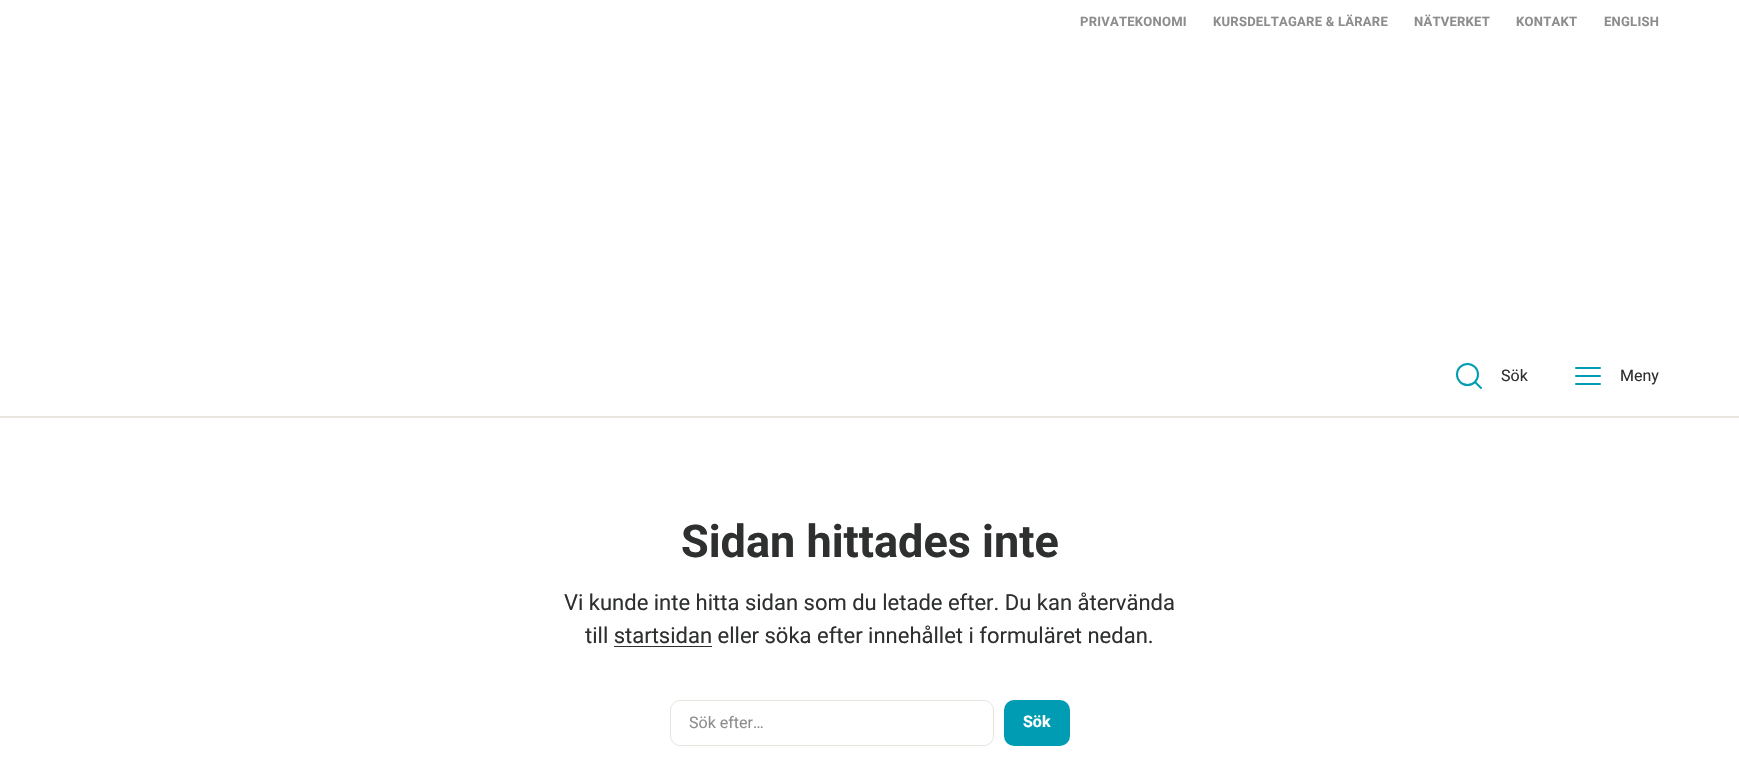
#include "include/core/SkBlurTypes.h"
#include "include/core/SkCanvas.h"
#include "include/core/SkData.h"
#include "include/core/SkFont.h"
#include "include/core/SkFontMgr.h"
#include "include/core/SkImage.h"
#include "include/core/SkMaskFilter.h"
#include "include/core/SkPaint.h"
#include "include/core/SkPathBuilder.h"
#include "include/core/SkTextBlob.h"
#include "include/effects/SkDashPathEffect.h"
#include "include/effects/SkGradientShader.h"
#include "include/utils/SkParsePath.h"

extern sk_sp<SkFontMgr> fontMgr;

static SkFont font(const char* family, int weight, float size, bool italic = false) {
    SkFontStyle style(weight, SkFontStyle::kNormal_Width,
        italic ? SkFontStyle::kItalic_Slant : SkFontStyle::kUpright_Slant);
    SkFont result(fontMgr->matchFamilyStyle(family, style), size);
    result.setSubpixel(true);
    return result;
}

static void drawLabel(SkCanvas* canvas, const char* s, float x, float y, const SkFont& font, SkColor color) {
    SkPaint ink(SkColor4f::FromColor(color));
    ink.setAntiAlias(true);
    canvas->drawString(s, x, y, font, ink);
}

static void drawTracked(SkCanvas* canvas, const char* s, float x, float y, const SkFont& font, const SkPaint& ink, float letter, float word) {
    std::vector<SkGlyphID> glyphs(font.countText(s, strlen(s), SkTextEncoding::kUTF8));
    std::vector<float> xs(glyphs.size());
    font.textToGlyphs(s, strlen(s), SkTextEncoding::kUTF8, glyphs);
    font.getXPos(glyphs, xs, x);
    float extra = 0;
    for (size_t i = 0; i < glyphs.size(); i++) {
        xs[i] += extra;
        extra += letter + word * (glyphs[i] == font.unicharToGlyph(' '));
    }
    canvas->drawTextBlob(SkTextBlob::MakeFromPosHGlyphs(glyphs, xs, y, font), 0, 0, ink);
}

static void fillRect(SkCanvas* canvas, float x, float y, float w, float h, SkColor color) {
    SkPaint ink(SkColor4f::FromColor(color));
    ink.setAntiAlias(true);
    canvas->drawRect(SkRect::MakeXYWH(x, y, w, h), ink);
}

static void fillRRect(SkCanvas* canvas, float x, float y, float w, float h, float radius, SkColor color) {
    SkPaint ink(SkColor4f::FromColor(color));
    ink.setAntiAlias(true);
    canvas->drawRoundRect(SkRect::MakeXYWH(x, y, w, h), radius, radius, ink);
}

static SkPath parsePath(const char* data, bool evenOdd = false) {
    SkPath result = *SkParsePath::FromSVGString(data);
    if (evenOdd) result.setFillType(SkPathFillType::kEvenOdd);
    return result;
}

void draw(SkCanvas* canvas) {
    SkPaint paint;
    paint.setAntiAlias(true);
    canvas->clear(0xFFFFFFFF);
    fillRect(canvas, 0, 416, 1739, 2, 0xFFE8E5DF);
    SkFont font1 = font("Roboto", 700, 13);
    paint.setColor(0xFF8D8D8D);
    drawTracked(canvas, "PRIVATEKONOMI", 1080, 26, font1, paint, 0.25f, 0);
    drawTracked(canvas, "KURSDELTAGARE & LÄRARE", 1213, 26, font1, paint, 0.25f, 0);
    drawTracked(canvas, "NÄTVERKET", 1414, 26, font1, paint, 0.25f, 0);
    drawTracked(canvas, "KONTAKT", 1516, 26, font1, paint, 0.25f, 0);
    drawTracked(canvas, "ENGLISH", 1604, 26, font1, paint, 0.25f, 0);
    paint.setStroke(true);
    paint.setStrokeWidth(2);
    paint.setColor(0xFF009CB3);
    canvas->drawCircle(1467.5f, 374.5f, 10.5f, paint);
    paint.setStrokeCap(SkPaint::kRound_Cap);
    paint.setStrokeJoin(SkPaint::kRound_Join);
    canvas->drawPath(parsePath("M1475 382L1481 388"), paint);
    SkFont font2 = font("Roboto", 400, 16);
    drawLabel(canvas, "Sök", 1501, 381, font2, 0xFF2E2F2F);
    fillRRect(canvas, 1575, 367, 26, 2, 1, 0xFF009CB3);
    fillRRect(canvas, 1575, 375, 26, 2, 1, 0xFF009CB3);
    fillRRect(canvas, 1575, 383, 26, 2, 1, 0xFF009CB3);
    drawLabel(canvas, "Meny", 1620, 381, font2, 0xFF2E2F2F);
    SkFont font3 = font("Roboto", 700, 45);
    drawLabel(canvas, "Sidan hittades inte", 681, 557, font3, 0xFF2E2F2F);
    SkFont font4 = font("Roboto", 400, 22);
    drawLabel(canvas, "Vi kunde inte hitta sidan som du letade efter. Du kan återvända", 564, 610, font4, 0xFF2E2F2F);
    drawLabel(canvas, "till startsidan eller söka efter innehållet i formuläret nedan.", 585, 643, font4, 0xFF2E2F2F);
    fillRect(canvas, 614, 646, 98, 1, 0xFF2E2F2F);
    paint.setStrokeWidth(1);
    paint.setStrokeCap(SkPaint::kButt_Cap);
    paint.setStrokeJoin(SkPaint::kMiter_Join);
    paint.setColor(0xFFE8E5DF);
    canvas->drawRoundRect(SkRect::MakeXYWH(670.5f, 700.5f, 323, 45), 9.5f, 9.5f, paint);
    drawLabel(canvas, "Sök efter…", 689, 728, font2, 0xFF8D8D8D);
    fillRRect(canvas, 1004, 700, 66, 46, 10, 0xFF009CB3);
    SkFont font5 = font("Roboto", 700, 16);
    drawLabel(canvas, "Sök", 1023, 727, font5, 0xFFFFFFFF);
}
